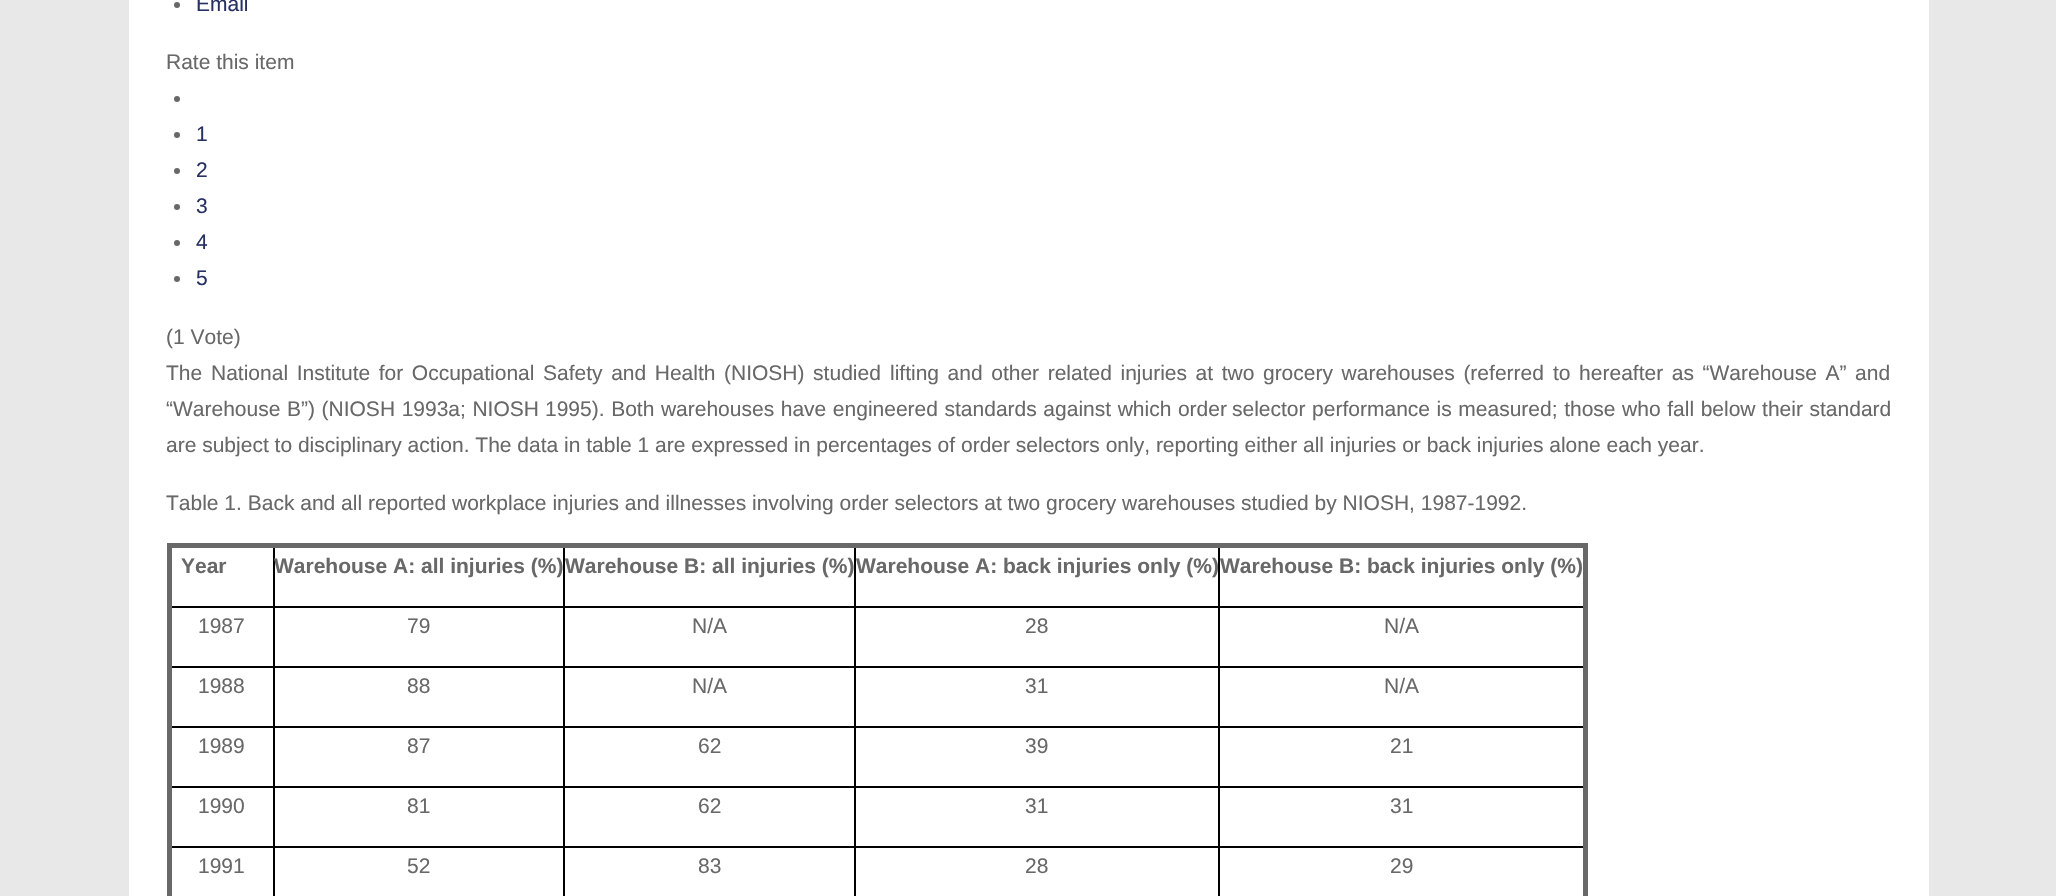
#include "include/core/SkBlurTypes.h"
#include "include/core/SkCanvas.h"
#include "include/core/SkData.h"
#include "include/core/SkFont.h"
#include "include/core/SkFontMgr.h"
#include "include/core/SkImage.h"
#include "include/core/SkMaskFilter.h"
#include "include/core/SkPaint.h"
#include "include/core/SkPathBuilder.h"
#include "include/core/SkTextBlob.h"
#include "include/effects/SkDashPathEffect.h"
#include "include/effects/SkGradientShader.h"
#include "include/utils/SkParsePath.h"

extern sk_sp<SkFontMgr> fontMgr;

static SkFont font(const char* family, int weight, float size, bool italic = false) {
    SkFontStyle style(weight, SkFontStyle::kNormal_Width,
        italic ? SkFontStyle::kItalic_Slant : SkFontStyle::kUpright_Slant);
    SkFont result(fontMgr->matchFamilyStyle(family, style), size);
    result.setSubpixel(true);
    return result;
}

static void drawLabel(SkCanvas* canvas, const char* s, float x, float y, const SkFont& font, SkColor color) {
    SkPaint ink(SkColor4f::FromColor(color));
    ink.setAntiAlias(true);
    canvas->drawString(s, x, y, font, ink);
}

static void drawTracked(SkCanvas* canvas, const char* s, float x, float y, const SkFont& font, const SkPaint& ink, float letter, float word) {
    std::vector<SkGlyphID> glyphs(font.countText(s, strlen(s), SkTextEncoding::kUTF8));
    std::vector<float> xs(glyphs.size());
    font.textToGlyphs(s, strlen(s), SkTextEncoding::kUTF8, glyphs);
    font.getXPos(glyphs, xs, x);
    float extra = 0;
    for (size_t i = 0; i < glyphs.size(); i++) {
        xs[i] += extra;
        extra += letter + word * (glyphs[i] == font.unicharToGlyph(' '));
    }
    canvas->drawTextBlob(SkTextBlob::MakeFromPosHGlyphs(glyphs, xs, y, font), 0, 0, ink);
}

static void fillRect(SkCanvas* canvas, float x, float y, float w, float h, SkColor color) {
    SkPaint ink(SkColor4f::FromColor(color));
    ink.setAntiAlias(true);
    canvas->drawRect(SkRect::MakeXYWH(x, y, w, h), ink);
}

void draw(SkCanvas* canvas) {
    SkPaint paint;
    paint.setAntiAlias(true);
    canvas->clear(0xFFE8E8E8);
    fillRect(canvas, 129, 0, 1800, 896, 0xFFFFFFFF);
    paint.setColor(0xFF686868);
    canvas->drawCircle(177, 5, 3, paint);
    SkFont font1 = font("Liberation Sans", 400, 21);
    drawLabel(canvas, "Email", 196, 11, font1, 0xFF263062);
    drawLabel(canvas, "Rate this item", 166, 69, font1, 0xFF686868);
    canvas->drawCircle(177, 99, 3, paint);
    canvas->drawCircle(177, 135, 3, paint);
    drawLabel(canvas, "1", 196, 141, font1, 0xFF263062);
    canvas->drawCircle(177, 171, 3, paint);
    drawLabel(canvas, "2", 196, 177, font1, 0xFF263062);
    canvas->drawCircle(177, 207, 3, paint);
    drawLabel(canvas, "3", 196, 213, font1, 0xFF263062);
    canvas->drawCircle(177, 243, 3, paint);
    drawLabel(canvas, "4", 196, 249, font1, 0xFF263062);
    canvas->drawCircle(177, 279, 3, paint);
    drawLabel(canvas, "5", 196, 285, font1, 0xFF263062);
    drawLabel(canvas, "(1 Vote)", 166, 344, font1, 0xFF686868);
    drawLabel(canvas, "The", 166, 380, font1, 0xFF686868);
    drawTracked(canvas, "National Institute for Occupational Safety and Health (NIOSH) studied", 211, 380, font1, paint, 0, 2.75f);
    drawTracked(canvas, "lifting and other related injuries at two grocery warehouses (referred", 890, 380, font1, paint, 0, 2.75f);
    drawTracked(canvas, "to hereafter as “Warehouse A” and", 1553, 380, font1, paint, 0, 2.75f);
    drawTracked(canvas, "“Warehouse B”) (NIOSH 1993a; NIOSH", 166, 416, font1, paint, 0, 0.75f);
    drawTracked(canvas, "1995). Both warehouses have engineered standards against which order", 545, 416, font1, paint, 0, 0.75f);
    drawTracked(canvas, "selector performance is measured; those who fall below their standard", 1232, 416, font1, paint, 0, 0.75f);
    drawLabel(canvas, "are subject to disciplinary action. The data in table 1 are expressed in percentages of order selectors only, reporting either all injuries or back injuries alone each year.", 166, 452, font1, 0xFF686868);
    drawLabel(canvas, "Table 1. Back and all reported workplace injuries and illnesses involving order selectors at two grocery warehouses studied by NIOSH, 1987-1992.", 166, 510, font1, 0xFF686868);
    fillRect(canvas, 1218, 606, 368, 2, 0xFF000000);
    fillRect(canvas, 1218, 666, 368, 2, 0xFF000000);
    fillRect(canvas, 1218, 726, 368, 2, 0xFF000000);
    fillRect(canvas, 1218, 786, 368, 2, 0xFF000000);
    fillRect(canvas, 1218, 846, 368, 2, 0xFF000000);
    fillRect(canvas, 1218, 846, 2, 50, 0xFF000000);
    fillRect(canvas, 854, 846, 366, 2, 0xFF000000);
    fillRect(canvas, 1218, 786, 2, 62, 0xFF000000);
    fillRect(canvas, 854, 786, 366, 2, 0xFF000000);
    fillRect(canvas, 1218, 726, 2, 62, 0xFF000000);
    fillRect(canvas, 854, 726, 366, 2, 0xFF000000);
    fillRect(canvas, 1218, 666, 2, 62, 0xFF000000);
    fillRect(canvas, 854, 666, 366, 2, 0xFF000000);
    fillRect(canvas, 1218, 606, 2, 62, 0xFF000000);
    fillRect(canvas, 854, 606, 366, 2, 0xFF000000);
    fillRect(canvas, 854, 846, 2, 50, 0xFF000000);
    fillRect(canvas, 563, 846, 292, 2, 0xFF000000);
    fillRect(canvas, 854, 786, 2, 62, 0xFF000000);
    fillRect(canvas, 563, 786, 292, 2, 0xFF000000);
    fillRect(canvas, 854, 726, 2, 62, 0xFF000000);
    fillRect(canvas, 563, 726, 292, 2, 0xFF000000);
    fillRect(canvas, 854, 666, 2, 62, 0xFF000000);
    fillRect(canvas, 563, 666, 292, 2, 0xFF000000);
    fillRect(canvas, 854, 606, 2, 62, 0xFF000000);
    fillRect(canvas, 563, 606, 292, 2, 0xFF000000);
    fillRect(canvas, 563, 846, 2, 50, 0xFF000000);
    fillRect(canvas, 273, 846, 291, 2, 0xFF000000);
    fillRect(canvas, 563, 786, 2, 62, 0xFF000000);
    fillRect(canvas, 273, 786, 291, 2, 0xFF000000);
    fillRect(canvas, 563, 726, 2, 62, 0xFF000000);
    fillRect(canvas, 273, 726, 291, 2, 0xFF000000);
    fillRect(canvas, 563, 666, 2, 62, 0xFF000000);
    fillRect(canvas, 273, 666, 291, 2, 0xFF000000);
    fillRect(canvas, 563, 606, 2, 62, 0xFF000000);
    fillRect(canvas, 273, 606, 291, 2, 0xFF000000);
    fillRect(canvas, 273, 846, 2, 50, 0xFF000000);
    fillRect(canvas, 168, 846, 107, 2, 0xFF000000);
    fillRect(canvas, 273, 786, 2, 62, 0xFF000000);
    fillRect(canvas, 168, 786, 107, 2, 0xFF000000);
    fillRect(canvas, 273, 726, 2, 62, 0xFF000000);
    fillRect(canvas, 168, 726, 107, 2, 0xFF000000);
    fillRect(canvas, 273, 666, 2, 62, 0xFF000000);
    fillRect(canvas, 168, 666, 107, 2, 0xFF000000);
    fillRect(canvas, 273, 606, 2, 62, 0xFF000000);
    fillRect(canvas, 168, 606, 107, 2, 0xFF000000);
    fillRect(canvas, 273, 545, 2, 63, 0xFF000000);
    fillRect(canvas, 563, 545, 2, 63, 0xFF000000);
    fillRect(canvas, 854, 545, 2, 63, 0xFF000000);
    fillRect(canvas, 1218, 545, 2, 63, 0xFF000000);
    fillRect(canvas, 167, 543, 1420, 5, 0xFF686868);
    fillRect(canvas, 1583, 543, 5, 353, 0xFF686868);
    fillRect(canvas, 167, 543, 5, 353, 0xFF686868);
    SkFont font2 = font("Liberation Sans", 700, 21);
    drawLabel(canvas, "Year", 181, 573, font2, 0xFF686868);
    drawLabel(canvas, "Warehouse A: all injuries (%)", 274, 573, font2, 0xFF686868);
    drawLabel(canvas, "Warehouse B: all injuries (%)", 565, 573, font2, 0xFF686868);
    drawLabel(canvas, "Warehouse A: back injuries only (%)", 856, 573, font2, 0xFF686868);
    drawLabel(canvas, "Warehouse B: back injuries only (%)", 1220, 573, font2, 0xFF686868);
    drawLabel(canvas, "1987", 198, 633, font1, 0xFF686868);
    drawLabel(canvas, "79", 407, 633, font1, 0xFF686868);
    drawLabel(canvas, "N/A", 692, 633, font1, 0xFF686868);
    drawLabel(canvas, "28", 1025, 633, font1, 0xFF686868);
    drawLabel(canvas, "N/A", 1384, 633, font1, 0xFF686868);
    drawLabel(canvas, "1988", 198, 693, font1, 0xFF686868);
    drawLabel(canvas, "88", 407, 693, font1, 0xFF686868);
    drawLabel(canvas, "N/A", 692, 693, font1, 0xFF686868);
    drawLabel(canvas, "31", 1025, 693, font1, 0xFF686868);
    drawLabel(canvas, "N/A", 1384, 693, font1, 0xFF686868);
    drawLabel(canvas, "1989", 198, 753, font1, 0xFF686868);
    drawLabel(canvas, "87", 407, 753, font1, 0xFF686868);
    drawLabel(canvas, "62", 698, 753, font1, 0xFF686868);
    drawLabel(canvas, "39", 1025, 753, font1, 0xFF686868);
    drawLabel(canvas, "21", 1390, 753, font1, 0xFF686868);
    drawLabel(canvas, "1990", 198, 813, font1, 0xFF686868);
    drawLabel(canvas, "81", 407, 813, font1, 0xFF686868);
    drawLabel(canvas, "62", 698, 813, font1, 0xFF686868);
    drawLabel(canvas, "31", 1025, 813, font1, 0xFF686868);
    drawLabel(canvas, "31", 1390, 813, font1, 0xFF686868);
    drawLabel(canvas, "1991", 198, 873, font1, 0xFF686868);
    drawLabel(canvas, "52", 407, 873, font1, 0xFF686868);
    drawLabel(canvas, "83", 698, 873, font1, 0xFF686868);
    drawLabel(canvas, "28", 1025, 873, font1, 0xFF686868);
    drawLabel(canvas, "29", 1390, 873, font1, 0xFF686868);
}
